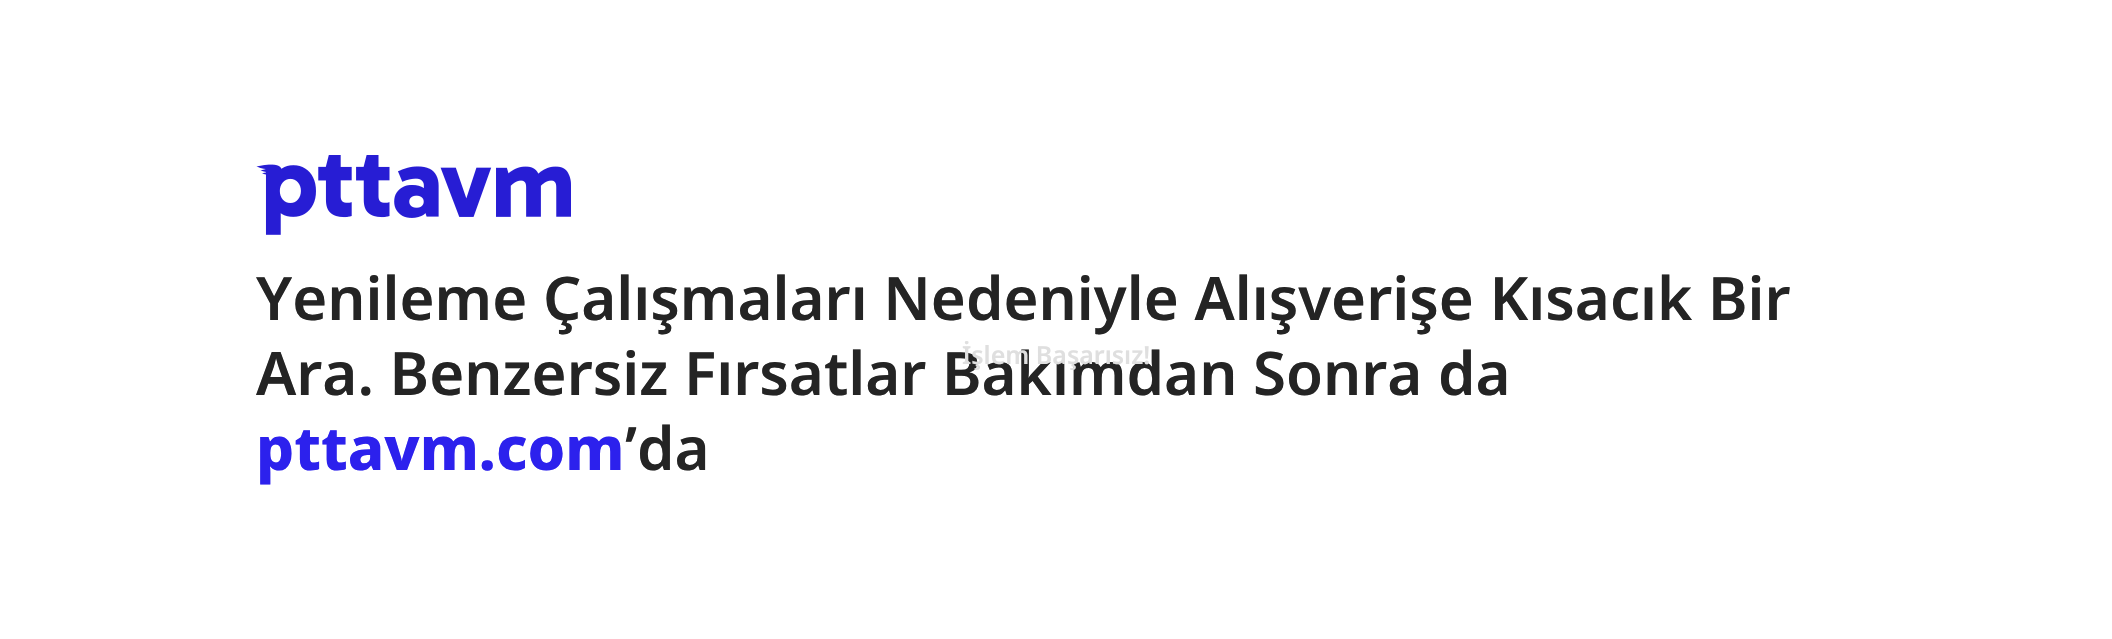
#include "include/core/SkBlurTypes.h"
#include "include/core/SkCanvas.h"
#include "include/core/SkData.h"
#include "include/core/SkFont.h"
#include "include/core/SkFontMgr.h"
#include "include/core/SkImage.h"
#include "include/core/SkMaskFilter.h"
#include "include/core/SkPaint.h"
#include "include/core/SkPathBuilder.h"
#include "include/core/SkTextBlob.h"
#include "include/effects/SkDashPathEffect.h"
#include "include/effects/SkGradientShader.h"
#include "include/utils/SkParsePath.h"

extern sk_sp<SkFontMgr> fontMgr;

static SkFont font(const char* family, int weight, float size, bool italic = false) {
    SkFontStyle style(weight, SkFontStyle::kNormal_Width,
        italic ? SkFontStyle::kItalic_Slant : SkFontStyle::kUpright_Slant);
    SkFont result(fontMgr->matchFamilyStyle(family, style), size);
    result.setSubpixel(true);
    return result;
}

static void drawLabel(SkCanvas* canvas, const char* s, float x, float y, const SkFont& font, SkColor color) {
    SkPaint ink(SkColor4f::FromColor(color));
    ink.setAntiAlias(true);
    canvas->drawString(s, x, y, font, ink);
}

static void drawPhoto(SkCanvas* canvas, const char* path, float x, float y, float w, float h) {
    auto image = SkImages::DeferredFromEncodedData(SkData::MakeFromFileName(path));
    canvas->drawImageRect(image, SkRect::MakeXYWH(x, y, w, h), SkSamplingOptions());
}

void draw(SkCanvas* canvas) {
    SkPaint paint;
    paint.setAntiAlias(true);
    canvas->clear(0xFFFFFFFF);
    drawPhoto(canvas, "assets/img1.png", 256, 155, 315, 80);
    SkFont font1 = font("Noto Sans", 600, 60);
    drawLabel(canvas, "Yenileme Çalışmaları Nedeniyle Alışverişe Kısacık Bir", 256, 320, font1, 0xFF242424);
    drawLabel(canvas, "Ara. Benzersiz Fırsatlar Bakımdan Sonra da", 256, 395, font1, 0xFF242424);
    SkFont font2 = font("Noto Sans", 800, 60);
    drawLabel(canvas, "pttavm.com", 256, 470, font2, 0xFF2C21ED);
    drawLabel(canvas, "’da", 625, 470, font1, 0xFF242424);
    SkFont font3 = font("Noto Sans", 600, 25);
    drawLabel(canvas, "İşlem Başarısız!", 962, 364, font3, 0xFFDFDFDF);
}
